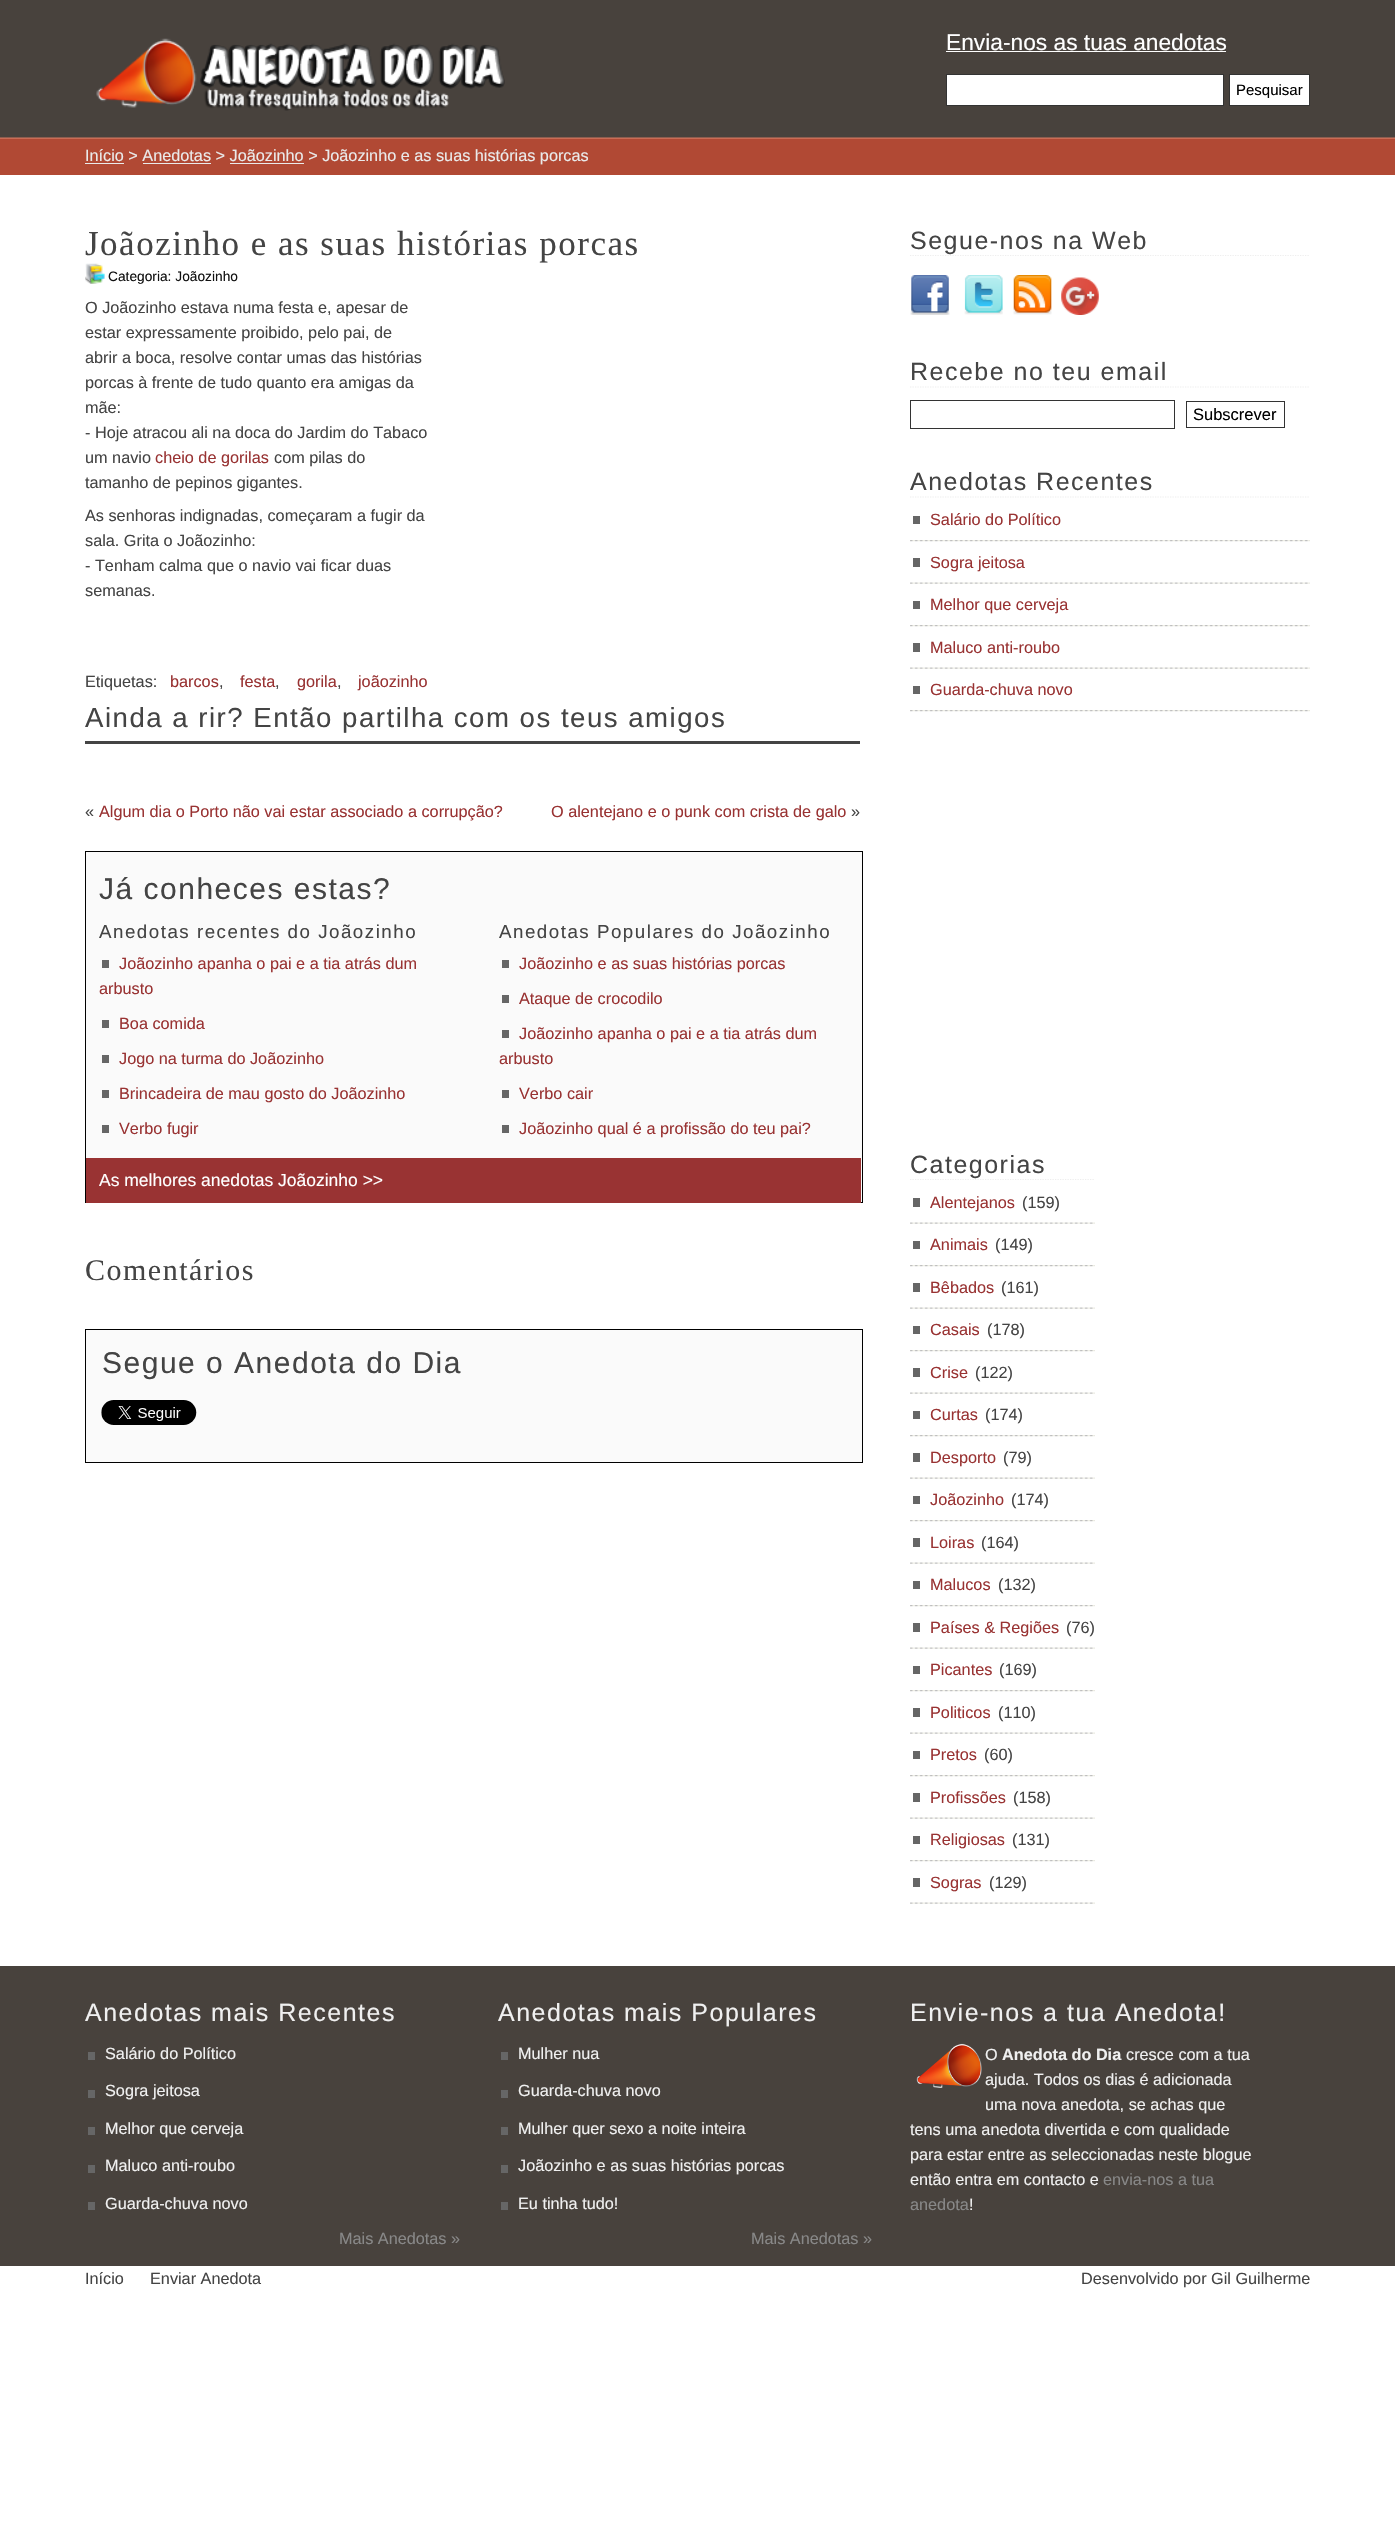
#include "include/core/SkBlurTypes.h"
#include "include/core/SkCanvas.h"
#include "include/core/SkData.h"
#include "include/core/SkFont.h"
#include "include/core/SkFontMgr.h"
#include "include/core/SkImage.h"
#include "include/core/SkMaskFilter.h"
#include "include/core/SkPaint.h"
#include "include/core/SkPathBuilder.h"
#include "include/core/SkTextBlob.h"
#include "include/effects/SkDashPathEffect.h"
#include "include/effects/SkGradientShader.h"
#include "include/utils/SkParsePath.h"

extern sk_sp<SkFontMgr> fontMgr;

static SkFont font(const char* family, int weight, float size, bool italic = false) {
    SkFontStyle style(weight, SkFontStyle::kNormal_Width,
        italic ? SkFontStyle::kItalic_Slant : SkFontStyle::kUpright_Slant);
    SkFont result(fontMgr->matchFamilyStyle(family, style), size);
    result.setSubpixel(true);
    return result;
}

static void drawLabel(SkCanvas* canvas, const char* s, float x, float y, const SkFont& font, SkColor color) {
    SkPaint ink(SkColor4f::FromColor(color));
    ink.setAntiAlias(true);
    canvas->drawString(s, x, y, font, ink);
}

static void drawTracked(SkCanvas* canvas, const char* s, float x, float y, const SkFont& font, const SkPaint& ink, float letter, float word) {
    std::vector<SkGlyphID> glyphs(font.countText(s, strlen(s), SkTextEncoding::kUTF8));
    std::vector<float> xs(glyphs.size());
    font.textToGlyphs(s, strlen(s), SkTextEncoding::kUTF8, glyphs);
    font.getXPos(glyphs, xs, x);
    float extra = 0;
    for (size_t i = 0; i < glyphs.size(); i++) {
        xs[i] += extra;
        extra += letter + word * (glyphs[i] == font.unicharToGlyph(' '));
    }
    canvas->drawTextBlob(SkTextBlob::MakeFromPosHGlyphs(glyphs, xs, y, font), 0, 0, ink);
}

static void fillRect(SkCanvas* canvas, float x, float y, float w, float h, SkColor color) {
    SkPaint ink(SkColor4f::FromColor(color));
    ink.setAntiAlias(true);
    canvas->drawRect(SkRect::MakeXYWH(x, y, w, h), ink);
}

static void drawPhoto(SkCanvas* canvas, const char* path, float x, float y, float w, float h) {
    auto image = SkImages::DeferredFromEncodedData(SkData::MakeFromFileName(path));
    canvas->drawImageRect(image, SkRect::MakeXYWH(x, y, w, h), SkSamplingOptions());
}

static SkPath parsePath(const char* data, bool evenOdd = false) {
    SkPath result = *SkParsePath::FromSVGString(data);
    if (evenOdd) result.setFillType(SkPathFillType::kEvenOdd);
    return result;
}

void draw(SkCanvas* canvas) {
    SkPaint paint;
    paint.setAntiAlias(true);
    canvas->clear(0xFFFFFFFF);
    fillRect(canvas, 0, 0, 1395, 138, 0xFF48423D);
    drawPhoto(canvas, "assets/img1.png", 96, 38, 409, 73);
    SkFont font1 = font("Liberation Sans", 400, 22.75f);
    drawLabel(canvas, "Envia-nos as tuas anedotas", 946, 50, font1, 0xFFFFFFFF);
    fillRect(canvas, 946, 51, 280, 1, 0xFFFFFFFF);
    paint.setColor(0xFFFFFFFF);
    canvas->drawRect(SkRect::MakeXYWH(946.5f, 74.5f, 277, 31), paint);
    paint.setStroke(true);
    paint.setStrokeWidth(1);
    paint.setColor(0xFF333333);
    canvas->drawRect(SkRect::MakeXYWH(946.5f, 74.5f, 277, 31), paint);
    paint.setStroke(false);
    paint.setColor(0xFFFFFFFF);
    canvas->drawRect(SkRect::MakeXYWH(1229.5f, 74.5f, 80, 31), paint);
    paint.setStroke(true);
    paint.setColor(0xFF333333);
    canvas->drawRect(SkRect::MakeXYWH(1229.5f, 74.5f, 80, 31), paint);
    SkFont font2 = font("Liberation Sans", 400, 15);
    drawLabel(canvas, "Pesquisar", 1236, 95, font2, 0xFF000000);
    drawPhoto(canvas, "assets/img2.png", 0, 137, 1395, 38);
    fillRect(canvas, 85, 163, 39, 1, 0xFFEAEAEA);
    SkFont font3 = font("Liberation Sans", 400, 16.25f);
    drawLabel(canvas, "Início > Anedotas > Joãozinho > Joãozinho e as suas histórias porcas", 85, 161, font3, 0xFFEAEAEA);
    fillRect(canvas, 143, 163, 68, 1, 0xFFEAEAEA);
    fillRect(canvas, 230, 163, 74, 1, 0xFFEAEAEA);
    SkFont font4 = font("Liberation Serif", 400, 35);
    paint.setStroke(false);
    paint.setColor(0xFF444444);
    drawTracked(canvas, "Joãozinho e as suas histórias porcas", 85, 255, font4, paint, 1.5f, 0);
    drawPhoto(canvas, "assets/img3.png", 85, 263, 20, 21);
    SkFont font5 = font("Liberation Sans", 400, 13.75f);
    drawLabel(canvas, "Categoria: Joãozinho", 108, 281, font5, 0xFF111111);
    drawLabel(canvas, "O Joãozinho estava numa festa e, apesar de", 85, 313, font3, 0xFF444444);
    drawLabel(canvas, "estar expressamente proibido, pelo pai, de", 85, 338, font3, 0xFF444444);
    drawLabel(canvas, "abrir a boca, resolve contar umas das histórias", 85, 363, font3, 0xFF444444);
    drawLabel(canvas, "porcas à frente de tudo quanto era amigas da", 85, 388, font3, 0xFF444444);
    drawLabel(canvas, "mãe:", 85, 413, font3, 0xFF444444);
    drawLabel(canvas, "- Hoje atracou ali na doca do Jardim do Tabaco", 85, 438, font3, 0xFF444444);
    drawLabel(canvas, "um navio", 85, 463, font3, 0xFF444444);
    drawLabel(canvas, "cheio de gorilas", 155, 463, font3, 0xFF993333);
    drawLabel(canvas, "com pilas do", 274, 463, font3, 0xFF444444);
    drawLabel(canvas, "tamanho de pepinos gigantes.", 85, 488, font3, 0xFF444444);
    drawLabel(canvas, "As senhoras indignadas, começaram a fugir da", 85, 521, font3, 0xFF444444);
    drawLabel(canvas, "sala. Grita o Joãozinho:", 85, 546, font3, 0xFF444444);
    drawLabel(canvas, "- Tenham calma que o navio vai ficar duas", 85, 571, font3, 0xFF444444);
    drawLabel(canvas, "semanas.", 85, 596, font3, 0xFF444444);
    drawLabel(canvas, "Etiquetas:", 85, 687, font3, 0xFF444444);
    drawLabel(canvas, "barcos", 170, 687, font3, 0xFF993333);
    drawLabel(canvas, ",", 219, 687, font3, 0xFF444444);
    drawLabel(canvas, "festa", 240, 687, font3, 0xFF993333);
    drawLabel(canvas, ",", 275, 687, font3, 0xFF444444);
    drawLabel(canvas, "gorila", 297, 687, font3, 0xFF993333);
    drawLabel(canvas, ",", 337, 687, font3, 0xFF444444);
    drawLabel(canvas, "joãozinho", 358, 687, font3, 0xFF993333);
    fillRect(canvas, 85, 741, 775, 3, 0xFF444444);
    SkFont font6 = font("Liberation Sans", 400, 27.6f);
    drawTracked(canvas, "Ainda a rir? Então partilha com os teus amigos", 85, 727, font6, paint, 1.5f, 0);
    drawLabel(canvas, "«", 85, 817, font3, 0xFF444444);
    drawLabel(canvas, "Algum dia o Porto não vai estar associado a corrupção?", 99, 817, font3, 0xFF993333);
    drawLabel(canvas, "O alentejano e o punk com crista de galo", 551, 817, font3, 0xFF993333);
    drawLabel(canvas, "»", 851, 817, font3, 0xFF444444);
    paint.setColor(0xFFFAFAFA);
    canvas->drawRect(SkRect::MakeXYWH(85.5f, 851.5f, 777, 351), paint);
    paint.setStroke(true);
    paint.setColor(0xFF000000);
    canvas->drawRect(SkRect::MakeXYWH(85.5f, 851.5f, 777, 351), paint);
    SkFont font7 = font("Liberation Sans", 400, 30);
    paint.setStroke(false);
    paint.setColor(0xFF444444);
    drawTracked(canvas, "Já conheces estas?", 99, 899, font7, paint, 1.5f, 0);
    SkFont font8 = font("Liberation Sans", 400, 18.75f);
    drawTracked(canvas, "Anedotas recentes do Joãozinho", 99, 938, font8, paint, 1.5f, 0);
    drawLabel(canvas, "Joãozinho apanha o pai e a tia atrás dum", 119, 969, font3, 0xFF993333);
    fillRect(canvas, 102, 960, 7, 8, 0xFF666666);
    drawLabel(canvas, "arbusto", 99, 994, font3, 0xFF993333);
    drawLabel(canvas, "Boa comida", 119, 1029, font3, 0xFF993333);
    fillRect(canvas, 102, 1020, 7, 8, 0xFF666666);
    drawLabel(canvas, "Jogo na turma do Joãozinho", 119, 1064, font3, 0xFF993333);
    fillRect(canvas, 102, 1055, 7, 8, 0xFF666666);
    drawLabel(canvas, "Brincadeira de mau gosto do Joãozinho", 119, 1099, font3, 0xFF993333);
    fillRect(canvas, 102, 1090, 7, 8, 0xFF666666);
    drawLabel(canvas, "Verbo fugir", 119, 1134, font3, 0xFF993333);
    fillRect(canvas, 102, 1125, 7, 8, 0xFF666666);
    drawTracked(canvas, "Anedotas Populares do Joãozinho", 499, 938, font8, paint, 1.5f, 0);
    drawLabel(canvas, "Joãozinho e as suas histórias porcas", 519, 969, font3, 0xFF993333);
    fillRect(canvas, 502, 960, 7, 8, 0xFF666666);
    drawLabel(canvas, "Ataque de crocodilo", 519, 1004, font3, 0xFF993333);
    fillRect(canvas, 502, 995, 7, 8, 0xFF666666);
    drawLabel(canvas, "Joãozinho apanha o pai e a tia atrás dum", 519, 1039, font3, 0xFF993333);
    fillRect(canvas, 502, 1030, 7, 8, 0xFF666666);
    drawLabel(canvas, "arbusto", 499, 1064, font3, 0xFF993333);
    drawLabel(canvas, "Verbo cair", 519, 1099, font3, 0xFF993333);
    fillRect(canvas, 502, 1090, 7, 8, 0xFF666666);
    drawLabel(canvas, "Joãozinho qual é a profissão do teu pai?", 519, 1134, font3, 0xFF993333);
    fillRect(canvas, 502, 1125, 7, 8, 0xFF666666);
    fillRect(canvas, 86, 1158, 775, 45, 0xFF993333);
    SkFont font9 = font("Liberation Sans", 400, 17.5f);
    drawLabel(canvas, "As melhores anedotas Joãozinho >>", 99, 1186, font9, 0xFFFFFFFF);
    SkFont font10 = font("Liberation Serif", 400, 30);
    drawTracked(canvas, "Comentários", 85, 1280, font10, paint, 1.5f, 0);
    paint.setColor(0xFFFAFAFA);
    canvas->drawRect(SkRect::MakeXYWH(85.5f, 1329.5f, 777, 133), paint);
    paint.setStroke(true);
    paint.setColor(0xFF000000);
    canvas->drawRect(SkRect::MakeXYWH(85.5f, 1329.5f, 777, 133), paint);
    paint.setStroke(false);
    paint.setColor(0xFF444444);
    drawTracked(canvas, "Segue o Anedota do Dia", 102, 1373, font7, paint, 1.5f, 0);
    drawPhoto(canvas, "assets/img4.png", 101, 1400, 96, 25);
    paint.setStroke(true);
    paint.setStrokeWidth(1.2f);
    paint.setColor(0xFFEEEEEE);
    paint.setPathEffect(SkDashPathEffect::Make({{1.25f, 1.25f}}, 0));
    canvas->drawPath(parsePath("M910 255.5H1310"), paint);
    paint.setPathEffect(nullptr);
    SkFont font11 = font("Liberation Sans", 400, 25);
    paint.setStroke(false);
    paint.setColor(0xFF444444);
    drawTracked(canvas, "Segue-nos na Web", 910, 249, font11, paint, 1.5f, 0);
    drawPhoto(canvas, "assets/img5.png", 910, 275, 40, 40);
    drawPhoto(canvas, "assets/img6.png", 964, 275, 39, 40);
    drawPhoto(canvas, "assets/img7.png", 1013, 275, 39, 40);
    drawPhoto(canvas, "assets/img8.png", 1061, 277, 38, 38);
    paint.setStroke(true);
    paint.setColor(0xFFEEEEEE);
    paint.setPathEffect(SkDashPathEffect::Make({{1.25f, 1.25f}}, 0));
    canvas->drawPath(parsePath("M910 387H1310"), paint);
    paint.setPathEffect(nullptr);
    paint.setStroke(false);
    paint.setColor(0xFF444444);
    drawTracked(canvas, "Recebe no teu email", 910, 380, font11, paint, 1.5f, 0);
    paint.setStroke(true);
    paint.setStrokeWidth(1);
    paint.setColor(0xFF333333);
    canvas->drawRect(SkRect::MakeXYWH(910.5f, 400.5f, 264, 28), paint);
    canvas->drawRect(SkRect::MakeXYWH(1186.5f, 401.5f, 98, 26), paint);
    SkFont font12 = font("Liberation Sans", 400, 16.5f);
    drawLabel(canvas, "Subscrever", 1193, 420, font12, 0xFF000000);
    paint.setStrokeWidth(1.2f);
    paint.setColor(0xFFEEEEEE);
    paint.setPathEffect(SkDashPathEffect::Make({{1.25f, 1.25f}}, 0));
    canvas->drawPath(parsePath("M910 497H1310"), paint);
    paint.setPathEffect(nullptr);
    paint.setStroke(false);
    paint.setColor(0xFF444444);
    drawTracked(canvas, "Anedotas Recentes", 910, 490, font11, paint, 1.5f, 0);
    drawPhoto(canvas, "assets/img9.png", 910, 540, 400, 2);
    drawLabel(canvas, "Salário do Político", 930, 525, font3, 0xFF993333);
    fillRect(canvas, 913, 516, 7, 8, 0xFF666666);
    drawPhoto(canvas, "assets/img10.png", 910, 582, 400, 2);
    drawLabel(canvas, "Sogra jeitosa", 930, 568, font3, 0xFF993333);
    fillRect(canvas, 913, 558, 7, 9, 0xFF666666);
    drawPhoto(canvas, "assets/img9.png", 910, 625, 400, 2);
    drawLabel(canvas, "Melhor que cerveja", 930, 610, font3, 0xFF993333);
    fillRect(canvas, 913, 601, 7, 8, 0xFF666666);
    drawPhoto(canvas, "assets/img10.png", 910, 667, 400, 2);
    drawLabel(canvas, "Maluco anti-roubo", 930, 653, font3, 0xFF993333);
    fillRect(canvas, 913, 643, 7, 9, 0xFF666666);
    drawPhoto(canvas, "assets/img9.png", 910, 710, 400, 2);
    drawLabel(canvas, "Guarda-chuva novo", 930, 695, font3, 0xFF993333);
    fillRect(canvas, 913, 686, 7, 8, 0xFF666666);
    paint.setStroke(true);
    paint.setColor(0xFFEEEEEE);
    paint.setPathEffect(SkDashPathEffect::Make({{1.25f, 1.25f}}, 0));
    canvas->drawPath(parsePath("M910 1179.5H1095"), paint);
    paint.setPathEffect(nullptr);
    paint.setStroke(false);
    paint.setColor(0xFF444444);
    drawTracked(canvas, "Categorias", 910, 1173, font11, paint, 1.5f, 0);
    drawPhoto(canvas, "assets/img11.png", 910, 1222, 185, 2);
    drawLabel(canvas, "Alentejanos", 930, 1208, font3, 0xFF993333);
    fillRect(canvas, 913, 1198, 7, 9, 0xFF666666);
    drawLabel(canvas, "(159)", 1022, 1208, font3, 0xFF444444);
    drawPhoto(canvas, "assets/img12.png", 910, 1265, 185, 2);
    drawLabel(canvas, "Animais", 930, 1250, font3, 0xFF993333);
    fillRect(canvas, 913, 1241, 7, 8, 0xFF666666);
    drawLabel(canvas, "(149)", 995, 1250, font3, 0xFF444444);
    drawPhoto(canvas, "assets/img11.png", 910, 1307, 185, 2);
    drawLabel(canvas, "Bêbados", 930, 1293, font3, 0xFF993333);
    fillRect(canvas, 913, 1283, 7, 9, 0xFF666666);
    drawLabel(canvas, "(161)", 1001, 1293, font3, 0xFF444444);
    drawPhoto(canvas, "assets/img12.png", 910, 1350, 185, 2);
    drawLabel(canvas, "Casais", 930, 1335, font3, 0xFF993333);
    fillRect(canvas, 913, 1326, 7, 8, 0xFF666666);
    drawLabel(canvas, "(178)", 987, 1335, font3, 0xFF444444);
    drawPhoto(canvas, "assets/img11.png", 910, 1392, 185, 2);
    drawLabel(canvas, "Crise", 930, 1378, font3, 0xFF993333);
    fillRect(canvas, 913, 1368, 7, 9, 0xFF666666);
    drawLabel(canvas, "(122)", 975, 1378, font3, 0xFF444444);
    drawPhoto(canvas, "assets/img12.png", 910, 1435, 185, 2);
    drawLabel(canvas, "Curtas", 930, 1420, font3, 0xFF993333);
    fillRect(canvas, 913, 1411, 7, 8, 0xFF666666);
    drawLabel(canvas, "(174)", 985, 1420, font3, 0xFF444444);
    drawPhoto(canvas, "assets/img11.png", 910, 1477, 185, 2);
    drawLabel(canvas, "Desporto", 930, 1463, font3, 0xFF993333);
    fillRect(canvas, 913, 1453, 7, 9, 0xFF666666);
    drawLabel(canvas, "(79)", 1003, 1463, font3, 0xFF444444);
    drawPhoto(canvas, "assets/img12.png", 910, 1520, 185, 2);
    drawLabel(canvas, "Joãozinho", 930, 1505, font3, 0xFF993333);
    fillRect(canvas, 913, 1496, 7, 8, 0xFF666666);
    drawLabel(canvas, "(174)", 1011, 1505, font3, 0xFF444444);
    drawPhoto(canvas, "assets/img11.png", 910, 1562, 185, 2);
    drawLabel(canvas, "Loiras", 930, 1548, font3, 0xFF993333);
    fillRect(canvas, 913, 1538, 7, 9, 0xFF666666);
    drawLabel(canvas, "(164)", 981, 1548, font3, 0xFF444444);
    drawPhoto(canvas, "assets/img12.png", 910, 1605, 185, 2);
    drawLabel(canvas, "Malucos", 930, 1590, font3, 0xFF993333);
    fillRect(canvas, 913, 1581, 7, 8, 0xFF666666);
    drawLabel(canvas, "(132)", 998, 1590, font3, 0xFF444444);
    drawPhoto(canvas, "assets/img11.png", 910, 1647, 185, 2);
    drawLabel(canvas, "Países & Regiões", 930, 1633, font3, 0xFF993333);
    fillRect(canvas, 913, 1623, 7, 9, 0xFF666666);
    drawLabel(canvas, "(76)", 1066, 1633, font3, 0xFF444444);
    drawPhoto(canvas, "assets/img12.png", 910, 1690, 185, 2);
    drawLabel(canvas, "Picantes", 930, 1675, font3, 0xFF993333);
    fillRect(canvas, 913, 1666, 7, 8, 0xFF666666);
    drawLabel(canvas, "(169)", 999, 1675, font3, 0xFF444444);
    drawPhoto(canvas, "assets/img11.png", 910, 1732, 185, 2);
    drawLabel(canvas, "Politicos", 930, 1718, font3, 0xFF993333);
    fillRect(canvas, 913, 1708, 7, 9, 0xFF666666);
    drawLabel(canvas, "(110)", 998, 1718, font3, 0xFF444444);
    drawPhoto(canvas, "assets/img12.png", 910, 1775, 185, 2);
    drawLabel(canvas, "Pretos", 930, 1760, font3, 0xFF993333);
    fillRect(canvas, 913, 1751, 7, 8, 0xFF666666);
    drawLabel(canvas, "(60)", 984, 1760, font3, 0xFF444444);
    drawPhoto(canvas, "assets/img11.png", 910, 1817, 185, 2);
    drawLabel(canvas, "Profissões", 930, 1803, font3, 0xFF993333);
    fillRect(canvas, 913, 1793, 7, 9, 0xFF666666);
    drawLabel(canvas, "(158)", 1013, 1803, font3, 0xFF444444);
    drawPhoto(canvas, "assets/img12.png", 910, 1860, 185, 2);
    drawLabel(canvas, "Religiosas", 930, 1845, font3, 0xFF993333);
    fillRect(canvas, 913, 1836, 7, 8, 0xFF666666);
    drawLabel(canvas, "(131)", 1012, 1845, font3, 0xFF444444);
    drawPhoto(canvas, "assets/img11.png", 910, 1902, 185, 2);
    drawLabel(canvas, "Sogras", 930, 1888, font3, 0xFF993333);
    fillRect(canvas, 913, 1878, 7, 9, 0xFF666666);
    drawLabel(canvas, "(129)", 989, 1888, font3, 0xFF444444);
    fillRect(canvas, 0, 1966, 1395, 300, 0xFF48423D);
    paint.setColor(0xFFF0F0F0);
    drawTracked(canvas, "Anedotas mais Recentes", 85, 2021, font11, paint, 1.5f, 0);
    drawLabel(canvas, "Salário do Político", 105, 2059, font3, 0xFFF0F0F0);
    fillRect(canvas, 88, 2052, 7, 8, 0xFF666666);
    drawLabel(canvas, "Sogra jeitosa", 105, 2096, font3, 0xFFF0F0F0);
    fillRect(canvas, 88, 2090, 7, 8, 0xFF666666);
    drawLabel(canvas, "Melhor que cerveja", 105, 2134, font3, 0xFFF0F0F0);
    fillRect(canvas, 88, 2127, 7, 8, 0xFF666666);
    drawLabel(canvas, "Maluco anti-roubo", 105, 2171, font3, 0xFFF0F0F0);
    fillRect(canvas, 88, 2165, 7, 8, 0xFF666666);
    drawLabel(canvas, "Guarda-chuva novo", 105, 2209, font3, 0xFFF0F0F0);
    fillRect(canvas, 88, 2202, 7, 8, 0xFF666666);
    drawLabel(canvas, "Mais Anedotas »", 339, 2244, font3, 0xFF888888);
    drawTracked(canvas, "Anedotas mais Populares", 498, 2021, font11, paint, 1.5f, 0);
    drawLabel(canvas, "Mulher nua", 518, 2059, font3, 0xFFF0F0F0);
    fillRect(canvas, 501, 2052, 7, 8, 0xFF666666);
    drawLabel(canvas, "Guarda-chuva novo", 518, 2096, font3, 0xFFF0F0F0);
    fillRect(canvas, 501, 2090, 7, 8, 0xFF666666);
    drawLabel(canvas, "Mulher quer sexo a noite inteira", 518, 2134, font3, 0xFFF0F0F0);
    fillRect(canvas, 501, 2127, 7, 8, 0xFF666666);
    drawLabel(canvas, "Joãozinho e as suas histórias porcas", 518, 2171, font3, 0xFFF0F0F0);
    fillRect(canvas, 501, 2165, 7, 8, 0xFF666666);
    drawLabel(canvas, "Eu tinha tudo!", 518, 2209, font3, 0xFFF0F0F0);
    fillRect(canvas, 501, 2202, 7, 8, 0xFF666666);
    drawLabel(canvas, "Mais Anedotas »", 751, 2244, font3, 0xFF888888);
    drawTracked(canvas, "Envie-nos a tua Anedota!", 910, 2021, font11, paint, 1.5f, 0);
    drawPhoto(canvas, "assets/img13.png", 916, 2043, 66, 45);
    drawLabel(canvas, "O", 985, 2060, font3, 0xFFF0F0F0);
    SkFont font13 = font("Liberation Sans", 700, 16.25f);
    drawLabel(canvas, "Anedota do Dia", 1002, 2060, font13, 0xFFF0F0F0);
    drawLabel(canvas, "cresce com a tua", 1126, 2060, font3, 0xFFF0F0F0);
    drawLabel(canvas, "ajuda. Todos os dias é adicionada", 985, 2085, font3, 0xFFF0F0F0);
    drawLabel(canvas, "uma nova anedota, se achas que", 985, 2110, font3, 0xFFF0F0F0);
    drawLabel(canvas, "tens uma anedota divertida e com qualidade", 910, 2135, font3, 0xFFF0F0F0);
    drawLabel(canvas, "para estar entre as seleccionadas neste blogue", 910, 2160, font3, 0xFFF0F0F0);
    drawLabel(canvas, "então entra em contacto e", 910, 2185, font3, 0xFFF0F0F0);
    drawLabel(canvas, "envia-nos a tua", 1103, 2185, font3, 0xFF888888);
    drawLabel(canvas, "anedota", 910, 2210, font3, 0xFF888888);
    drawLabel(canvas, "!", 969, 2210, font3, 0xFFF0F0F0);
    drawLabel(canvas, "Início", 85, 2284, font3, 0xFF444444);
    drawLabel(canvas, "Enviar Anedota", 150, 2284, font3, 0xFF444444);
    drawLabel(canvas, "Desenvolvido por Gil Guilherme", 1081, 2284, font3, 0xFF444444);
}
